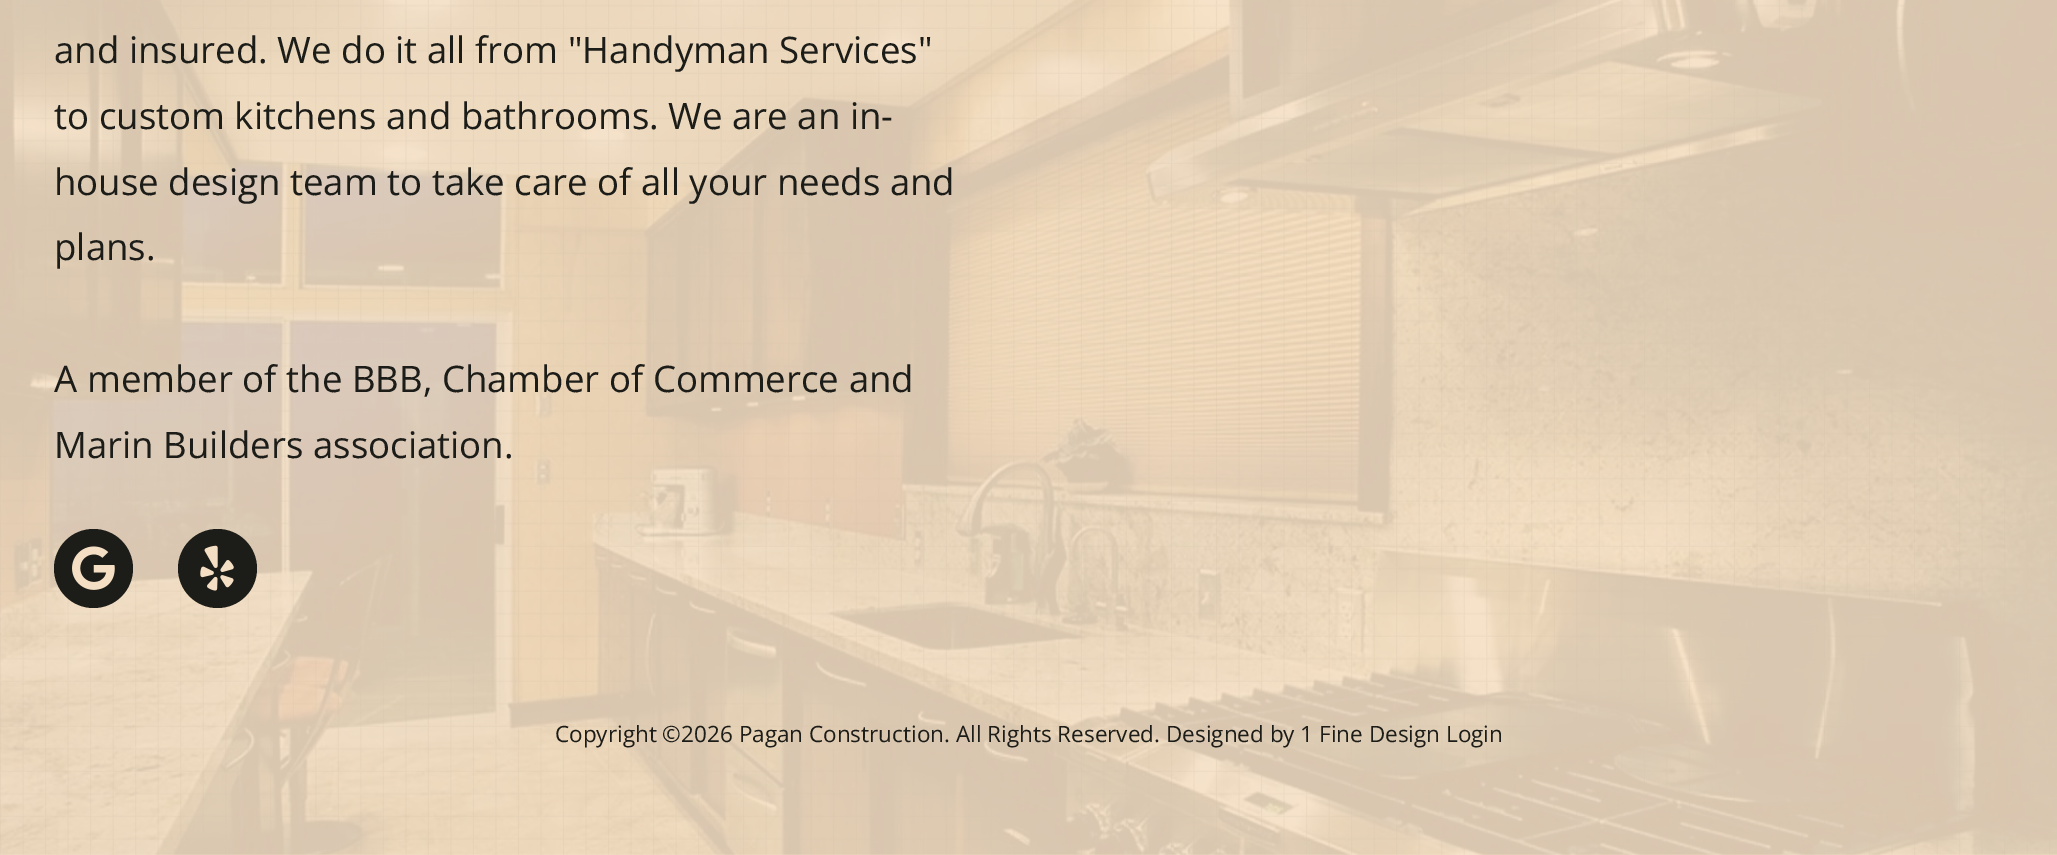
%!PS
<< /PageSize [2057 855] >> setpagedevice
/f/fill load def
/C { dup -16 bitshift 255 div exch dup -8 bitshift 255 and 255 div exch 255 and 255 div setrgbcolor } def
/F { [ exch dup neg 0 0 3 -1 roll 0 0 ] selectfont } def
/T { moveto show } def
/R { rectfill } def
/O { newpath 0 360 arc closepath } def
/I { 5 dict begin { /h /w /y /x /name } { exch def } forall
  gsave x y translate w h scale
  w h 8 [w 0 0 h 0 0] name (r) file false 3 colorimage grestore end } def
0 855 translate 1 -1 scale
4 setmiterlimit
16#FFFFFF C
0 0 2057 855 R
(1.rgb) 0 0 2057 855 I
/OpenSans-Regular 36.6 F
16#1C1C18 C
(and insured. We do it all from "Handyman Services") 54 63 T
(to custom kitchens and bathrooms. We are an in-) 54 129 T
(house design team to take care of all your needs and) 54 195 T
(plans.) 54 260 T
(A member of the BBB, Chamber of Commerce and) 54 392 T
(Marin Builders association.) 54 458 T
93.5 568.5 39.5 O f
(2.rgb) 72 546 43 44 I
217.5 568.5 39.5 O f
(3.rgb) 200 545 34 46 I
/OpenSans-Regular 22.5 F
(Copyright ©2026 Pagan Construction. All Rights Reserved.) 555 742 T
(Designed by 1 Fine Design Login) 1166 742 T
showpage
